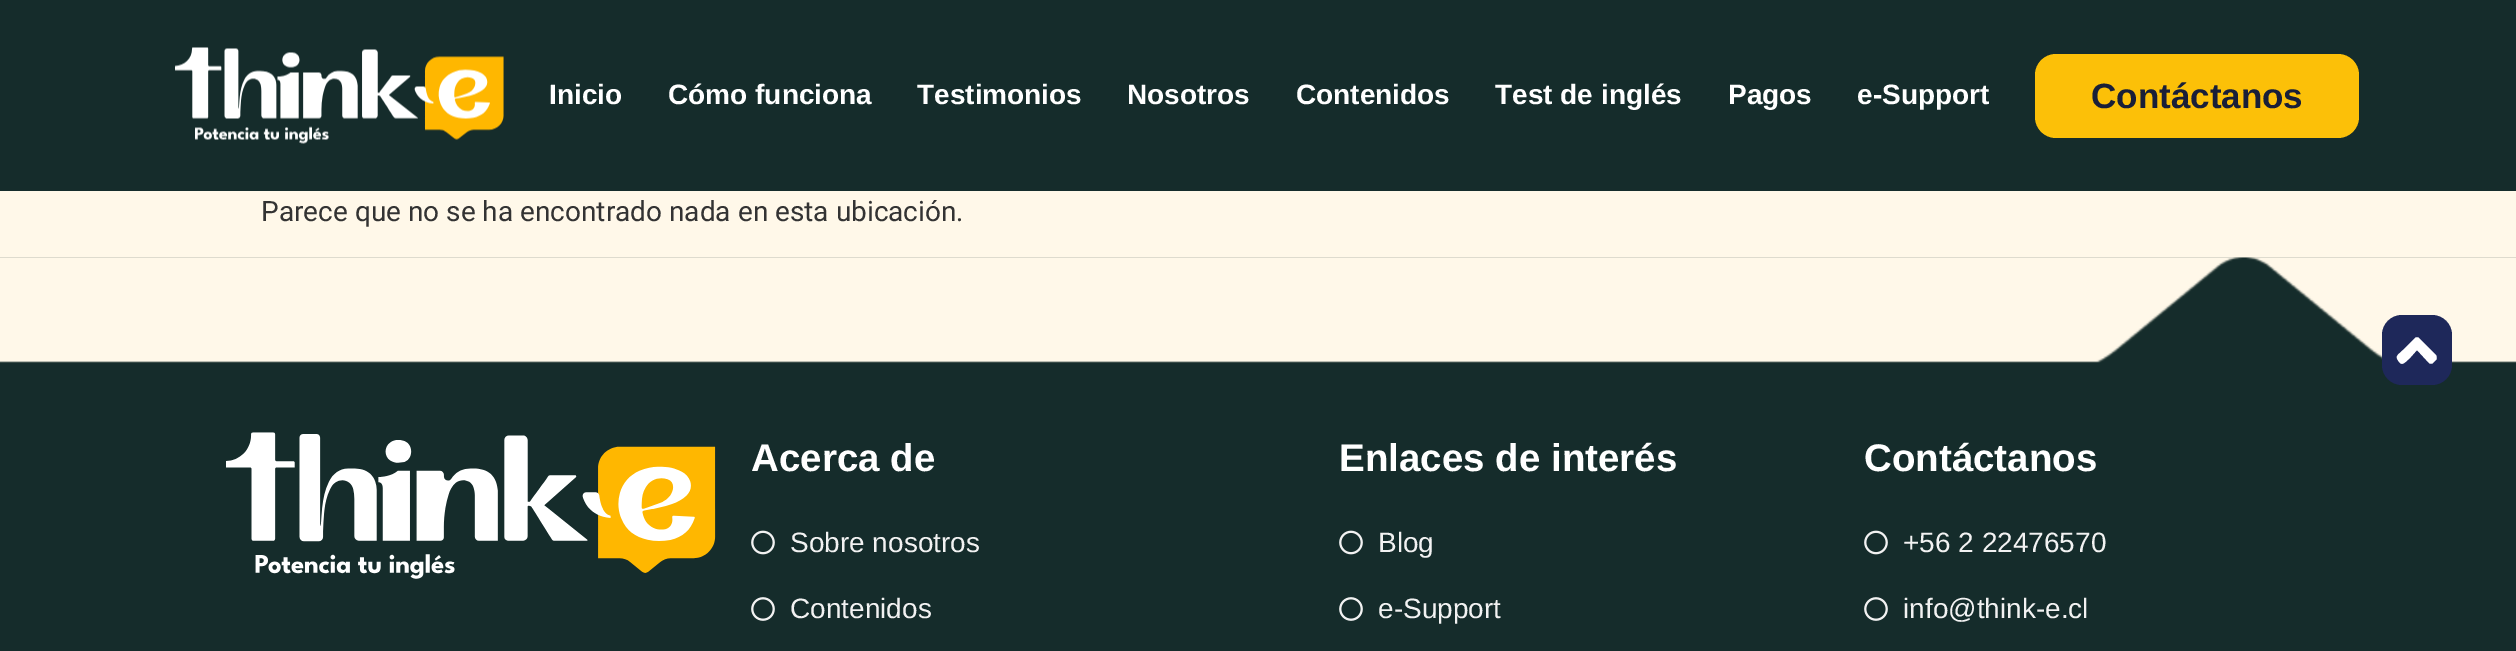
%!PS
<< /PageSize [2516 651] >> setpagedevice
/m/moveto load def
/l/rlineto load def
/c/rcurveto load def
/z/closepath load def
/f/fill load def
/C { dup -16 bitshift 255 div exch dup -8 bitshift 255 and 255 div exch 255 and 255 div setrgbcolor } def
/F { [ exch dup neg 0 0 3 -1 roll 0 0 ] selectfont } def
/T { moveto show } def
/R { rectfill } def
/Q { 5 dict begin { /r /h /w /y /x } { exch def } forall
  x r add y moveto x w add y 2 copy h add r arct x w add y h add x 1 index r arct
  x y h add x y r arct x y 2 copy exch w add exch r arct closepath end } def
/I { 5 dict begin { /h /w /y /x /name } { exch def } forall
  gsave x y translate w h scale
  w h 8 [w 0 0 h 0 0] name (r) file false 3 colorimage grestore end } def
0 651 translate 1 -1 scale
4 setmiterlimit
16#FFF8E9 C
0 0 2516 651 R
16#152C2B C
0 0 2516 191 R
(1.rgb) 175 47 329 97 I
/LiberationSans-Bold 28 F
16#FFFFFF C
(Inicio) 549 104 T
(Cómo funciona) 668 104 T
(Testimonios) 917 104 T
(Nosotros) 1127 104 T
(Contenidos) 1296 104 T
(Test de inglés) 1495 104 T
(Pagos) 1728 104 T
(e-Support) 1857 104 T
16#FCC008 C
2035 54 324 84 21 Q f
/LiberationSans-Bold 35 F
16#191F38 C
(Contáctanos) 2091 108 T
/Roboto-Regular 28 F
16#333333 C
(Parece que no se ha encontrado nada en esta ubicación.) 261 221 T
(2.rgb) 0 257 2516 394 I
16#1E285A C
2382 315 70 70 20 Q f
16#FFFFFF C
2415 338 m -12 12 l -6 6 -9 6 -3 13 c 3 3 7 -3 9 -4 c 8 -9 l 12 13 l 1 1 3 1 4 0 c 3 -3 l 1 -1 1 -3 0 -5 c -17 -17 l -1 -1 -3 -1 -4 0 c z f
(3.rgb) 226 432 490 147 I
/LiberationSans-Bold 38.5 F
(Acerca de) 751 471 T
(4.rgb) 751 530 24 25 I
/LiberationSans-Regular 28 F
16#F2F2F2 C
(Sobre nosotros) 790 552 T
(5.rgb) 751 597 24 24 I
(Contenidos) 790 618 T
/LiberationSans-Bold 38.5 F
16#FFFFFF C
(Enlaces de interés) 1339 471 T
(4.rgb) 1339 530 24 25 I
/LiberationSans-Regular 28 F
16#F2F2F2 C
(Blog) 1378 552 T
(5.rgb) 1339 597 24 24 I
(e-Support) 1378 618 T
/LiberationSans-Bold 38.5 F
16#FFFFFF C
(Contáctanos) 1864 471 T
(4.rgb) 1864 530 24 25 I
/LiberationSans-Regular 28 F
16#F2F2F2 C
(+56 2 22476570) 1903 552 T
(5.rgb) 1864 597 24 24 I
(info@think-e.cl) 1903 618 T
showpage
